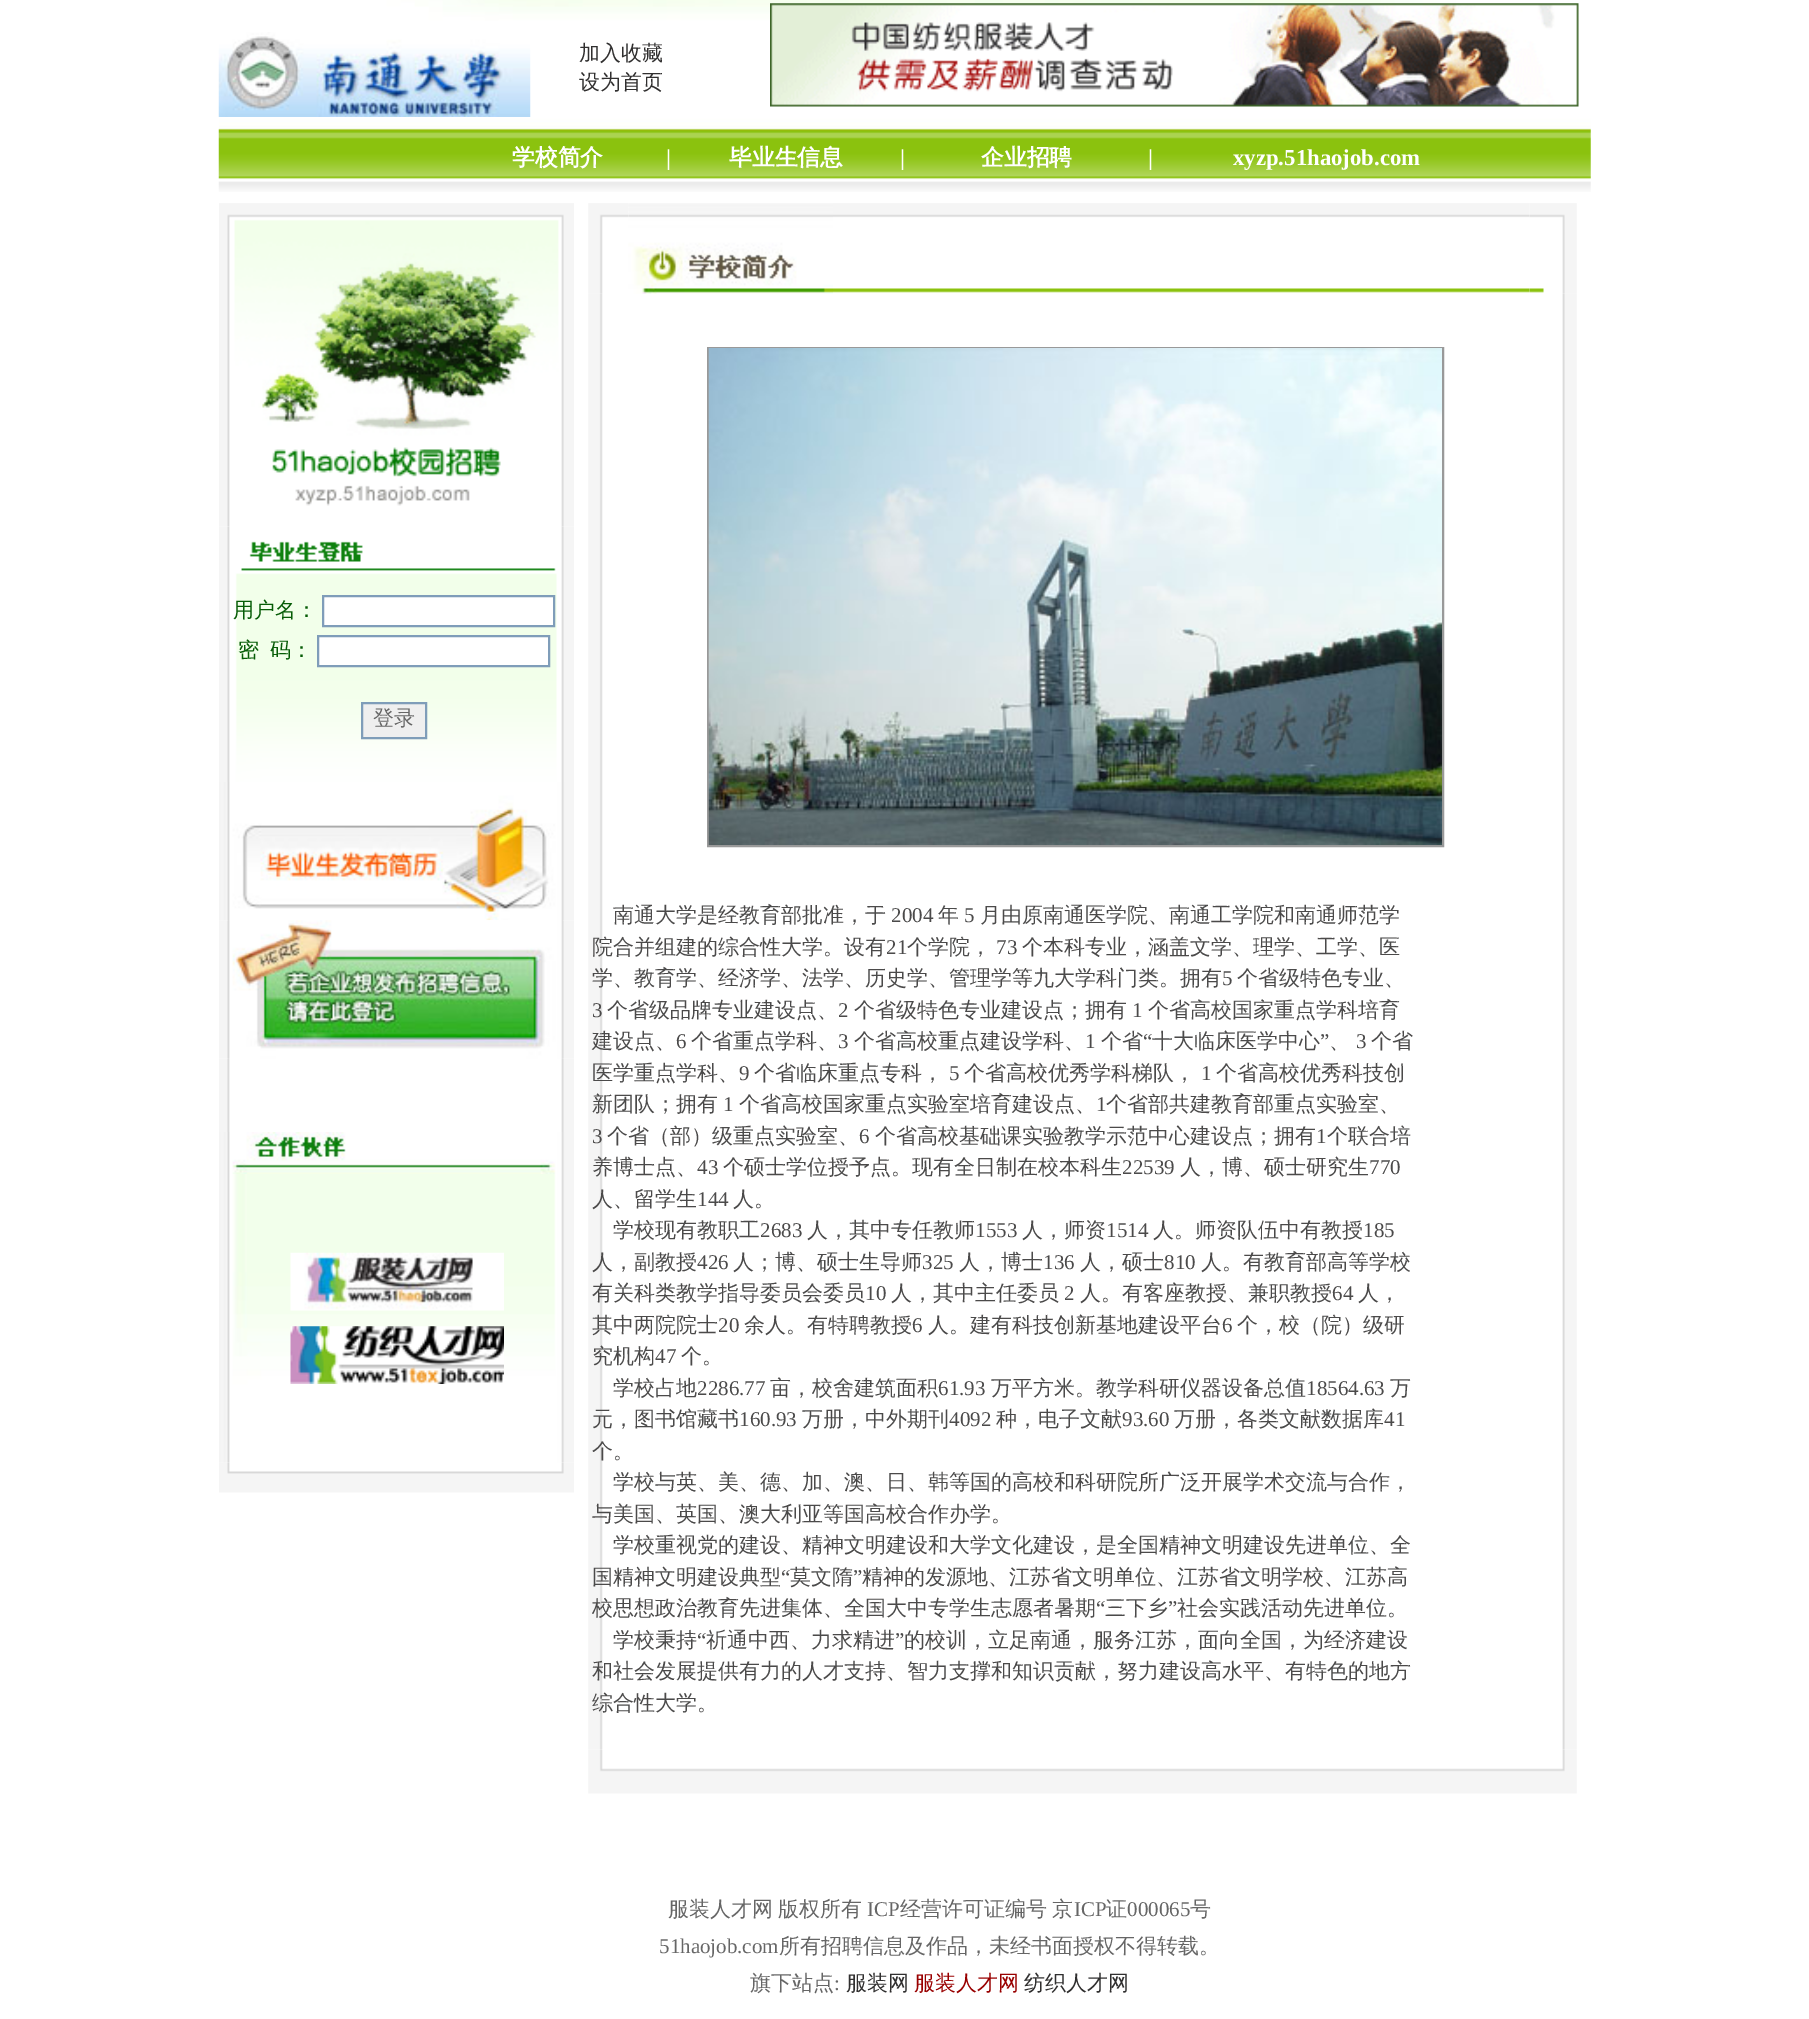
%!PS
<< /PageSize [1809 2019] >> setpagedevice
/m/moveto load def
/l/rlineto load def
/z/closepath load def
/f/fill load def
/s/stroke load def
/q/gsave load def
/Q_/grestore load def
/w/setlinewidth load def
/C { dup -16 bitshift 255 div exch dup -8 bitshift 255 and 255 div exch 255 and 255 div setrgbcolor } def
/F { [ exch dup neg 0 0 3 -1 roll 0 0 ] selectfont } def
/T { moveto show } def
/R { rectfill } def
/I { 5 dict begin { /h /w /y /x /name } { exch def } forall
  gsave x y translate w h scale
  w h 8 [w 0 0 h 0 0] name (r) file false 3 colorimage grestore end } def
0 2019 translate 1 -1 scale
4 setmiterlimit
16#FFFFFF C
0 0 1809 2019 R
(1.rgb) 218 0 1373 131 I
(2.rgb) 218 32 313 85 I
/WenQuanYiZenHei-Medium 21 F
16#302F2F C
(加入收藏) 579 60 T
(设为首页) 579 89 T
(3.rgb) 770 3 809 104 I
(4.rgb) 218 131 1373 61 I
/WenQuanYiZenHei-Bold 22.75 F
16#FFFFFF C
(学校简介) 512 165 T
/LiberationSerif-Bold 22.75 F
(|) 666 165 T
/WenQuanYiZenHei-Bold 22.75 F
(毕业生信息) 729 165 T
/LiberationSerif-Bold 22.75 F
(|) 900 165 T
/WenQuanYiZenHei-Bold 22.75 F
(企业招聘) 981 165 T
/LiberationSerif-Bold 22.75 F
(|) 1148 165 T
(xyzp.51haojob.com) 1233 165 T
(5.rgb) 219 203 355 324 I
(6.rgb) 219 526 355 53 I
(7.rgb) 219 579 355 203 I
/WenQuanYiZenHei-Medium 21 F
16#065C06 C
(用户名：) 233 617 T
16#FFFFFF C
323 596 m 231 0 l 0 30 l -231 0 l z q f Q_
16#7F9DB9 C
2 w
s
16#065C06 C
(密) 238 657 T
(码：) 270 657 T
16#FFFFFF C
318 636 m 231 0 l 0 30 l -231 0 l z q f Q_
16#7F9DB9 C
s
16#EFEFEF C
362 703 m 64 0 l 0 35 l -64 0 l z q f Q_
16#7F9DB9 C
s
16#666666 C
(登录) 373 725 T
(9.rgb) 219 920 355 139 I
(8.rgb) 219 782 355 139 I
(11.rgb) 219 1058 355 74 I
(10.rgb) 228 920 335 139 I
(12.rgb) 219 1132 355 42 I
(13.rgb) 219 1174 355 289 I
(14.rgb) 290 1252 214 59 I
(15.rgb) 290 1326 214 58 I
(16.rgb) 219 1463 355 30 I
(21.rgb) 588 293 989 1457 I
(17.rgb) 588 203 41 91 I
(18.rgb) 628 203 205 91 I
(19.rgb) 833 203 697 90 I
(20.rgb) 1529 203 48 91 I
16#999999 C
708 348 735 498 rectstroke
(22.rgb) 708 348 734 497 I
16#4B4A4A C
(南通大学是经教育部批准，于) 613 922 T
/LiberationSerif-Regular 21 F
(2004) 891 922 T
/WenQuanYiZenHei-Medium 21 F
(年) 938 922 T
/LiberationSerif-Regular 21 F
(5) 964 922 T
/WenQuanYiZenHei-Medium 21 F
(月由原南通医学院、南通工学院和南通师范学) 980 922 T
(院合并组建的综合性大学。设有) 592 954 T
/LiberationSerif-Regular 21 F
(21) 886 954 T
/WenQuanYiZenHei-Medium 21 F
(个学院，) 907 954 T
/LiberationSerif-Regular 21 F
(73) 996 954 T
/WenQuanYiZenHei-Medium 21 F
(个本科专业，涵盖文学、理学、工学、医) 1022 954 T
(学、教育学、经济学、法学、历史学、管理学等九大学科门类。拥有) 592 985 T
/LiberationSerif-Regular 21 F
(5) 1222 985 T
/WenQuanYiZenHei-Medium 21 F
(个省级特色专业、) 1237 985 T
/LiberationSerif-Regular 21 F
(3) 592 1017 T
/WenQuanYiZenHei-Medium 21 F
(个省级品牌专业建设点、) 607 1017 T
/LiberationSerif-Regular 21 F
(2) 838 1017 T
/WenQuanYiZenHei-Medium 21 F
(个省级特色专业建设点；拥有) 854 1017 T
/LiberationSerif-Regular 21 F
(1) 1132 1017 T
/WenQuanYiZenHei-Medium 21 F
(个省高校国家重点学科培育) 1148 1017 T
(建设点、) 592 1048 T
/LiberationSerif-Regular 21 F
(6) 676 1048 T
/WenQuanYiZenHei-Medium 21 F
(个省重点学科、) 691 1048 T
/LiberationSerif-Regular 21 F
(3) 838 1048 T
/WenQuanYiZenHei-Medium 21 F
(个省高校重点建设学科、) 854 1048 T
/LiberationSerif-Regular 21 F
(1) 1085 1048 T
/WenQuanYiZenHei-Medium 21 F
(个省) 1101 1048 T
/LiberationSerif-Regular 21 F
(“) 1143 1048 T
/WenQuanYiZenHei-Medium 21 F
(十大临床医学中心) 1152 1048 T
/LiberationSerif-Regular 21 F
(”) 1320 1048 T
/WenQuanYiZenHei-Medium 21 F
(、) 1329 1048 T
/LiberationSerif-Regular 21 F
(3) 1356 1048 T
/WenQuanYiZenHei-Medium 21 F
(个省) 1371 1048 T
(医学重点学科、) 592 1080 T
/LiberationSerif-Regular 21 F
(9) 739 1080 T
/WenQuanYiZenHei-Medium 21 F
(个省临床重点专科，) 754 1080 T
/LiberationSerif-Regular 21 F
(5) 949 1080 T
/WenQuanYiZenHei-Medium 21 F
(个省高校优秀学科梯队，) 964 1080 T
/LiberationSerif-Regular 21 F
(1) 1201 1080 T
/WenQuanYiZenHei-Medium 21 F
(个省高校优秀科技创) 1216 1080 T
(新团队；拥有) 592 1111 T
/LiberationSerif-Regular 21 F
(1) 723 1111 T
/WenQuanYiZenHei-Medium 21 F
(个省高校国家重点实验室培育建设点、) 739 1111 T
/LiberationSerif-Regular 21 F
(1) 1096 1111 T
/WenQuanYiZenHei-Medium 21 F
(个省部共建教育部重点实验室、) 1106 1111 T
/LiberationSerif-Regular 21 F
(3) 592 1143 T
/WenQuanYiZenHei-Medium 21 F
(个省（部）级重点实验室、) 607 1143 T
/LiberationSerif-Regular 21 F
(6) 859 1143 T
/WenQuanYiZenHei-Medium 21 F
(个省高校基础课实验教学示范中心建设点；拥有) 875 1143 T
/LiberationSerif-Regular 21 F
(1) 1316 1143 T
/WenQuanYiZenHei-Medium 21 F
(个联合培) 1327 1143 T
(养博士点、) 592 1174 T
/LiberationSerif-Regular 21 F
(43) 697 1174 T
/WenQuanYiZenHei-Medium 21 F
(个硕士学位授予点。现有全日制在校本科生) 723 1174 T
/LiberationSerif-Regular 21 F
(22539) 1122 1174 T
/WenQuanYiZenHei-Medium 21 F
(人，博、硕士研究生) 1180 1174 T
/LiberationSerif-Regular 21 F
(770) 1369 1174 T
/WenQuanYiZenHei-Medium 21 F
(人、留学生) 592 1206 T
/LiberationSerif-Regular 21 F
(144) 697 1206 T
/WenQuanYiZenHei-Medium 21 F
(人。) 733 1206 T
(学校现有教职工) 613 1237 T
/LiberationSerif-Regular 21 F
(2683) 760 1237 T
/WenQuanYiZenHei-Medium 21 F
(人，其中专任教师) 807 1237 T
/LiberationSerif-Regular 21 F
(1553) 975 1237 T
/WenQuanYiZenHei-Medium 21 F
(人，师资) 1022 1237 T
/LiberationSerif-Regular 21 F
(1514) 1106 1237 T
/WenQuanYiZenHei-Medium 21 F
(人。师资队伍中有教授) 1153 1237 T
/LiberationSerif-Regular 21 F
(185) 1363 1237 T
/WenQuanYiZenHei-Medium 21 F
(人，副教授) 592 1269 T
/LiberationSerif-Regular 21 F
(426) 697 1269 T
/WenQuanYiZenHei-Medium 21 F
(人；博、硕士生导师) 733 1269 T
/LiberationSerif-Regular 21 F
(325) 922 1269 T
/WenQuanYiZenHei-Medium 21 F
(人，博士) 959 1269 T
/LiberationSerif-Regular 21 F
(136) 1043 1269 T
/WenQuanYiZenHei-Medium 21 F
(人，硕士) 1080 1269 T
/LiberationSerif-Regular 21 F
(810) 1164 1269 T
/WenQuanYiZenHei-Medium 21 F
(人。有教育部高等学校) 1201 1269 T
(有关科类教学指导委员会委员) 592 1300 T
/LiberationSerif-Regular 21 F
(10) 865 1300 T
/WenQuanYiZenHei-Medium 21 F
(人，其中主任委员) 891 1300 T
/LiberationSerif-Regular 21 F
(2) 1064 1300 T
/WenQuanYiZenHei-Medium 21 F
(人。有客座教授、兼职教授) 1080 1300 T
/LiberationSerif-Regular 21 F
(64) 1332 1300 T
/WenQuanYiZenHei-Medium 21 F
(人，) 1358 1300 T
(其中两院院士) 592 1332 T
/LiberationSerif-Regular 21 F
(20) 718 1332 T
/WenQuanYiZenHei-Medium 21 F
(余人。有特聘教授) 744 1332 T
/LiberationSerif-Regular 21 F
(6) 912 1332 T
/WenQuanYiZenHei-Medium 21 F
(人。建有科技创新基地建设平台) 928 1332 T
/LiberationSerif-Regular 21 F
(6) 1222 1332 T
/WenQuanYiZenHei-Medium 21 F
(个，校（院）级研) 1237 1332 T
(究机构) 592 1363 T
/LiberationSerif-Regular 21 F
(47) 655 1363 T
/WenQuanYiZenHei-Medium 21 F
(个。) 681 1363 T
(学校占地) 613 1395 T
/LiberationSerif-Regular 21 F
(2286.77) 697 1395 T
/WenQuanYiZenHei-Medium 21 F
(亩，校舍建筑面积) 770 1395 T
/LiberationSerif-Regular 21 F
(61.93) 938 1395 T
/WenQuanYiZenHei-Medium 21 F
(万平方米。教学科研仪器设备总值) 991 1395 T
/LiberationSerif-Regular 21 F
(18564.63) 1306 1395 T
/WenQuanYiZenHei-Medium 21 F
(万) 1390 1395 T
(元，图书馆藏书) 592 1426 T
/LiberationSerif-Regular 21 F
(160.93) 739 1426 T
/WenQuanYiZenHei-Medium 21 F
(万册，中外期刊) 802 1426 T
/LiberationSerif-Regular 21 F
(4092) 949 1426 T
/WenQuanYiZenHei-Medium 21 F
(种，电子文献) 996 1426 T
/LiberationSerif-Regular 21 F
(93.60) 1122 1426 T
/WenQuanYiZenHei-Medium 21 F
(万册，各类文献数据库) 1174 1426 T
/LiberationSerif-Regular 21 F
(41) 1384 1426 T
/WenQuanYiZenHei-Medium 21 F
(个。) 592 1458 T
(学校与英、美、德、加、澳、日、韩等国的高校和科研院所广泛开展学术交流与合作，) 613 1489 T
(与美国、英国、澳大利亚等国高校合作办学。) 592 1521 T
(学校重视党的建设、精神文明建设和大学文化建设，是全国精神文明建设先进单位、全) 613 1552 T
(国精神文明建设典型) 592 1584 T
/LiberationSerif-Regular 21 F
(“) 781 1584 T
/WenQuanYiZenHei-Medium 21 F
(莫文隋) 790 1584 T
/LiberationSerif-Regular 21 F
(”) 853 1584 T
/WenQuanYiZenHei-Medium 21 F
(精神的发源地、江苏省文明单位、江苏省文明学校、江苏高) 862 1584 T
(校思想政治教育先进集体、全国大中专学生志愿者暑期) 592 1615 T
/LiberationSerif-Regular 21 F
(“) 1096 1615 T
/WenQuanYiZenHei-Medium 21 F
(三下乡) 1105 1615 T
/LiberationSerif-Regular 21 F
(”) 1168 1615 T
/WenQuanYiZenHei-Medium 21 F
(社会实践活动先进单位。) 1177 1615 T
(学校秉持) 613 1647 T
/LiberationSerif-Regular 21 F
(“) 697 1647 T
/WenQuanYiZenHei-Medium 21 F
(祈通中西、力求精进) 706 1647 T
/LiberationSerif-Regular 21 F
(”) 895 1647 T
/WenQuanYiZenHei-Medium 21 F
(的校训，立足南通，服务江苏，面向全国，为经济建设) 904 1647 T
(和社会发展提供有力的人才支持、智力支撑和知识贡献，努力建设高水平、有特色的地方) 592 1678 T
(综合性大学。) 592 1710 T
(23.rgb) 588 1750 989 44 I
16#666666 C
668 1916 m -1 0 32 (服装人才网 版权所有) widthshow
/LiberationSerif-Regular 21 F
(ICP) 867 1916 T
/WenQuanYiZenHei-Medium 21 F
900 1916 m -1 0 32 (经营许可证编号 京) widthshow
/LiberationSerif-Regular 21 F
(ICP) 1074 1916 T
/WenQuanYiZenHei-Medium 21 F
(证) 1106 1916 T
/LiberationSerif-Regular 21 F
(000065) 1127 1916 T
/WenQuanYiZenHei-Medium 21 F
(号) 1190 1916 T
/LiberationSerif-Regular 21 F
(51haojob.com) 659 1953 T
/WenQuanYiZenHei-Medium 21 F
(所有招聘信息及作品，未经书面授权不得转载。) 779 1953 T
(旗下站点) 750 1990 T
/LiberationSerif-Regular 21 F
(:) 834 1990 T
/WenQuanYiZenHei-Medium 21 F
16#302F2F C
(服装网) 846 1990 T
16#990000 C
(服装人才网) 914 1990 T
16#302F2F C
(纺织人才网) 1024 1990 T
showpage
